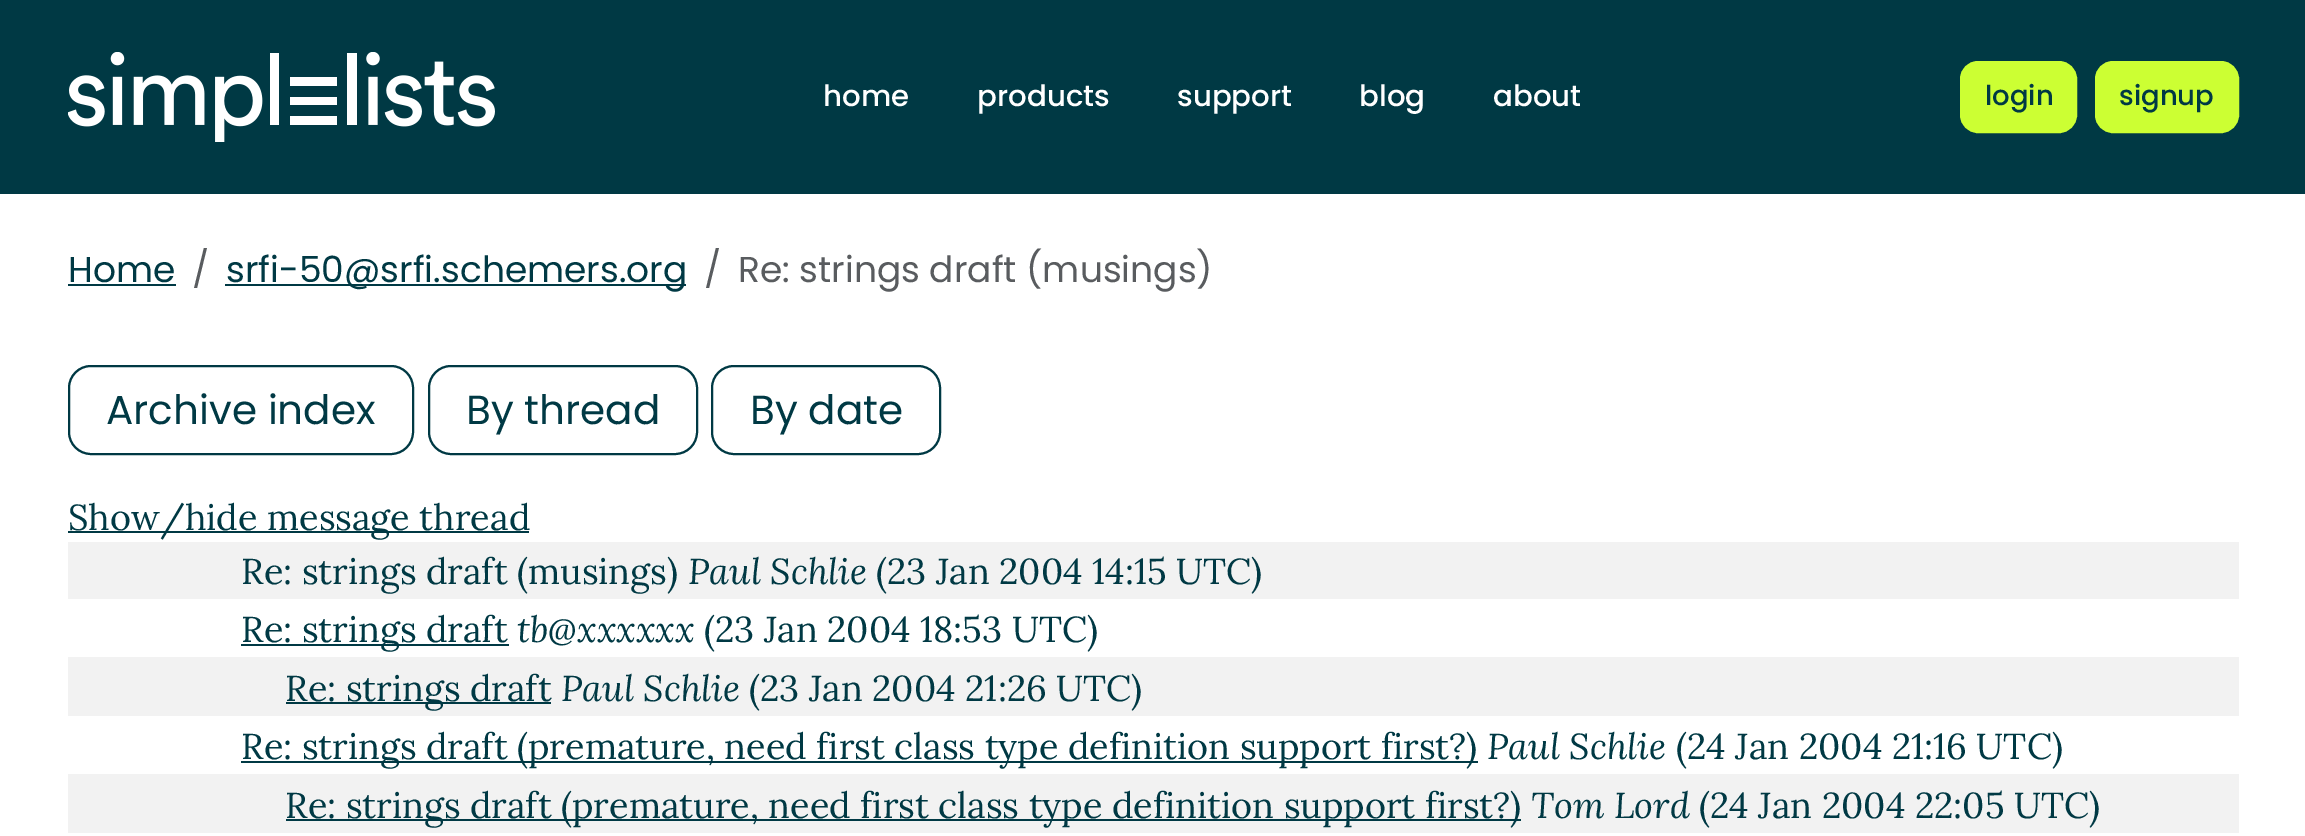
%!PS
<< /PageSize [2305 836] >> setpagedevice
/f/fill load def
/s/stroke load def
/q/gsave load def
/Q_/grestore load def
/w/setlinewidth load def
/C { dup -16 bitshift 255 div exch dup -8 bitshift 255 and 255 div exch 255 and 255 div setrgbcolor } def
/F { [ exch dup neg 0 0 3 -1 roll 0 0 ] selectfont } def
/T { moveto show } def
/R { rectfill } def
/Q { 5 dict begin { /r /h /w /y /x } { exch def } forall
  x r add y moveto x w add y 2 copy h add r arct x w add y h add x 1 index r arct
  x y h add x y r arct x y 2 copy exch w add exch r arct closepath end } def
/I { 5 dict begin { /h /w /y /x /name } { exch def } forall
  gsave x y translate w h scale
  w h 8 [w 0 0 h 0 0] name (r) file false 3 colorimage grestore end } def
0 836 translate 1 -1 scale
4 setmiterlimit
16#FFFFFF C
0 0 2305 836 R
16#003944 C
0 0 2305 194 R
(1.rgb) 68 52 427 90 I
/Poppins-Medium 29.25 F
16#FFFFFF C
(home) 823 106 T
(products) 977 106 T
(support) 1177 106 T
(blog) 1359 106 T
(about) 1493 106 T
16#CCFF33 C
1961 62 115 70 17 Q q f Q_
2 w
s
/Poppins-Medium 27.5 F
16#003944 C
(login) 1985 105 T
16#CCFF33 C
2096 62 142 70 17 Q q f Q_
s
16#003944 C
(signup) 2119 105 T
/Poppins-Regular 36 F
(Home) 68 282 T
68 284 108 2 R
16#595C5F C
(/) 192 282 T
16#003944 C
225 284 461 2 R
(srfi-50@srfi.schemers.org) 226 282 T
16#595C5F C
(/) 704 282 T
(Re: strings draft \(musings\)) 738 282 T
16#003944 C
69 366 344 88 22 Q s
/Poppins-Regular 40.5 F
(Archive index) 106 424 T
429 366 268 88 22 Q s
(By thread) 466 424 T
712 366 228 88 22 Q s
(By date) 750 424 T
68 531 461 2 R
/Lora-Regular 36 F
(Show/hide message thread) 68 530 T
16#F2F2F2 C
68 542 2171 57 R
16#003944 C
(Re: strings draft \(musings\)) 241 584 T
/Lora-Italic 36 F
(Paul Schlie) 688 584 T
/Lora-Regular 36 F
(\(23 Jan 2004 14:15 UTC\)) 876 584 T
241 644 268 2 R
(Re: strings draft) 241 642 T
/Lora-Italic 36 F
(tb@xxxxxx) 517 642 T
/Lora-Regular 36 F
(\(23 Jan 2004 18:53 UTC\)) 704 642 T
16#F2F2F2 C
68 657 2171 59 R
16#003944 C
286 702 265 2 R
(Re: strings draft) 285 701 T
/Lora-Italic 36 F
(Paul Schlie) 561 701 T
/Lora-Regular 36 F
(\(23 Jan 2004 21:26 UTC\)) 749 701 T
241 761 1237 2 R
(Re: strings draft \(premature, need first class type definition support first?\)) 241 759 T
/Lora-Italic 36 F
(Paul Schlie) 1487 759 T
/Lora-Regular 36 F
(\(24 Jan 2004 21:16 UTC\)) 1676 759 T
16#F2F2F2 C
68 774 2171 59 R
16#003944 C
286 819 1235 2 R
(Re: strings draft \(premature, need first class type definition support first?\)) 285 818 T
/Lora-Italic 36 F
(Tom Lord) 1531 818 T
/Lora-Regular 36 F
(\(24 Jan 2004 22:05 UTC\)) 1699 818 T
showpage
